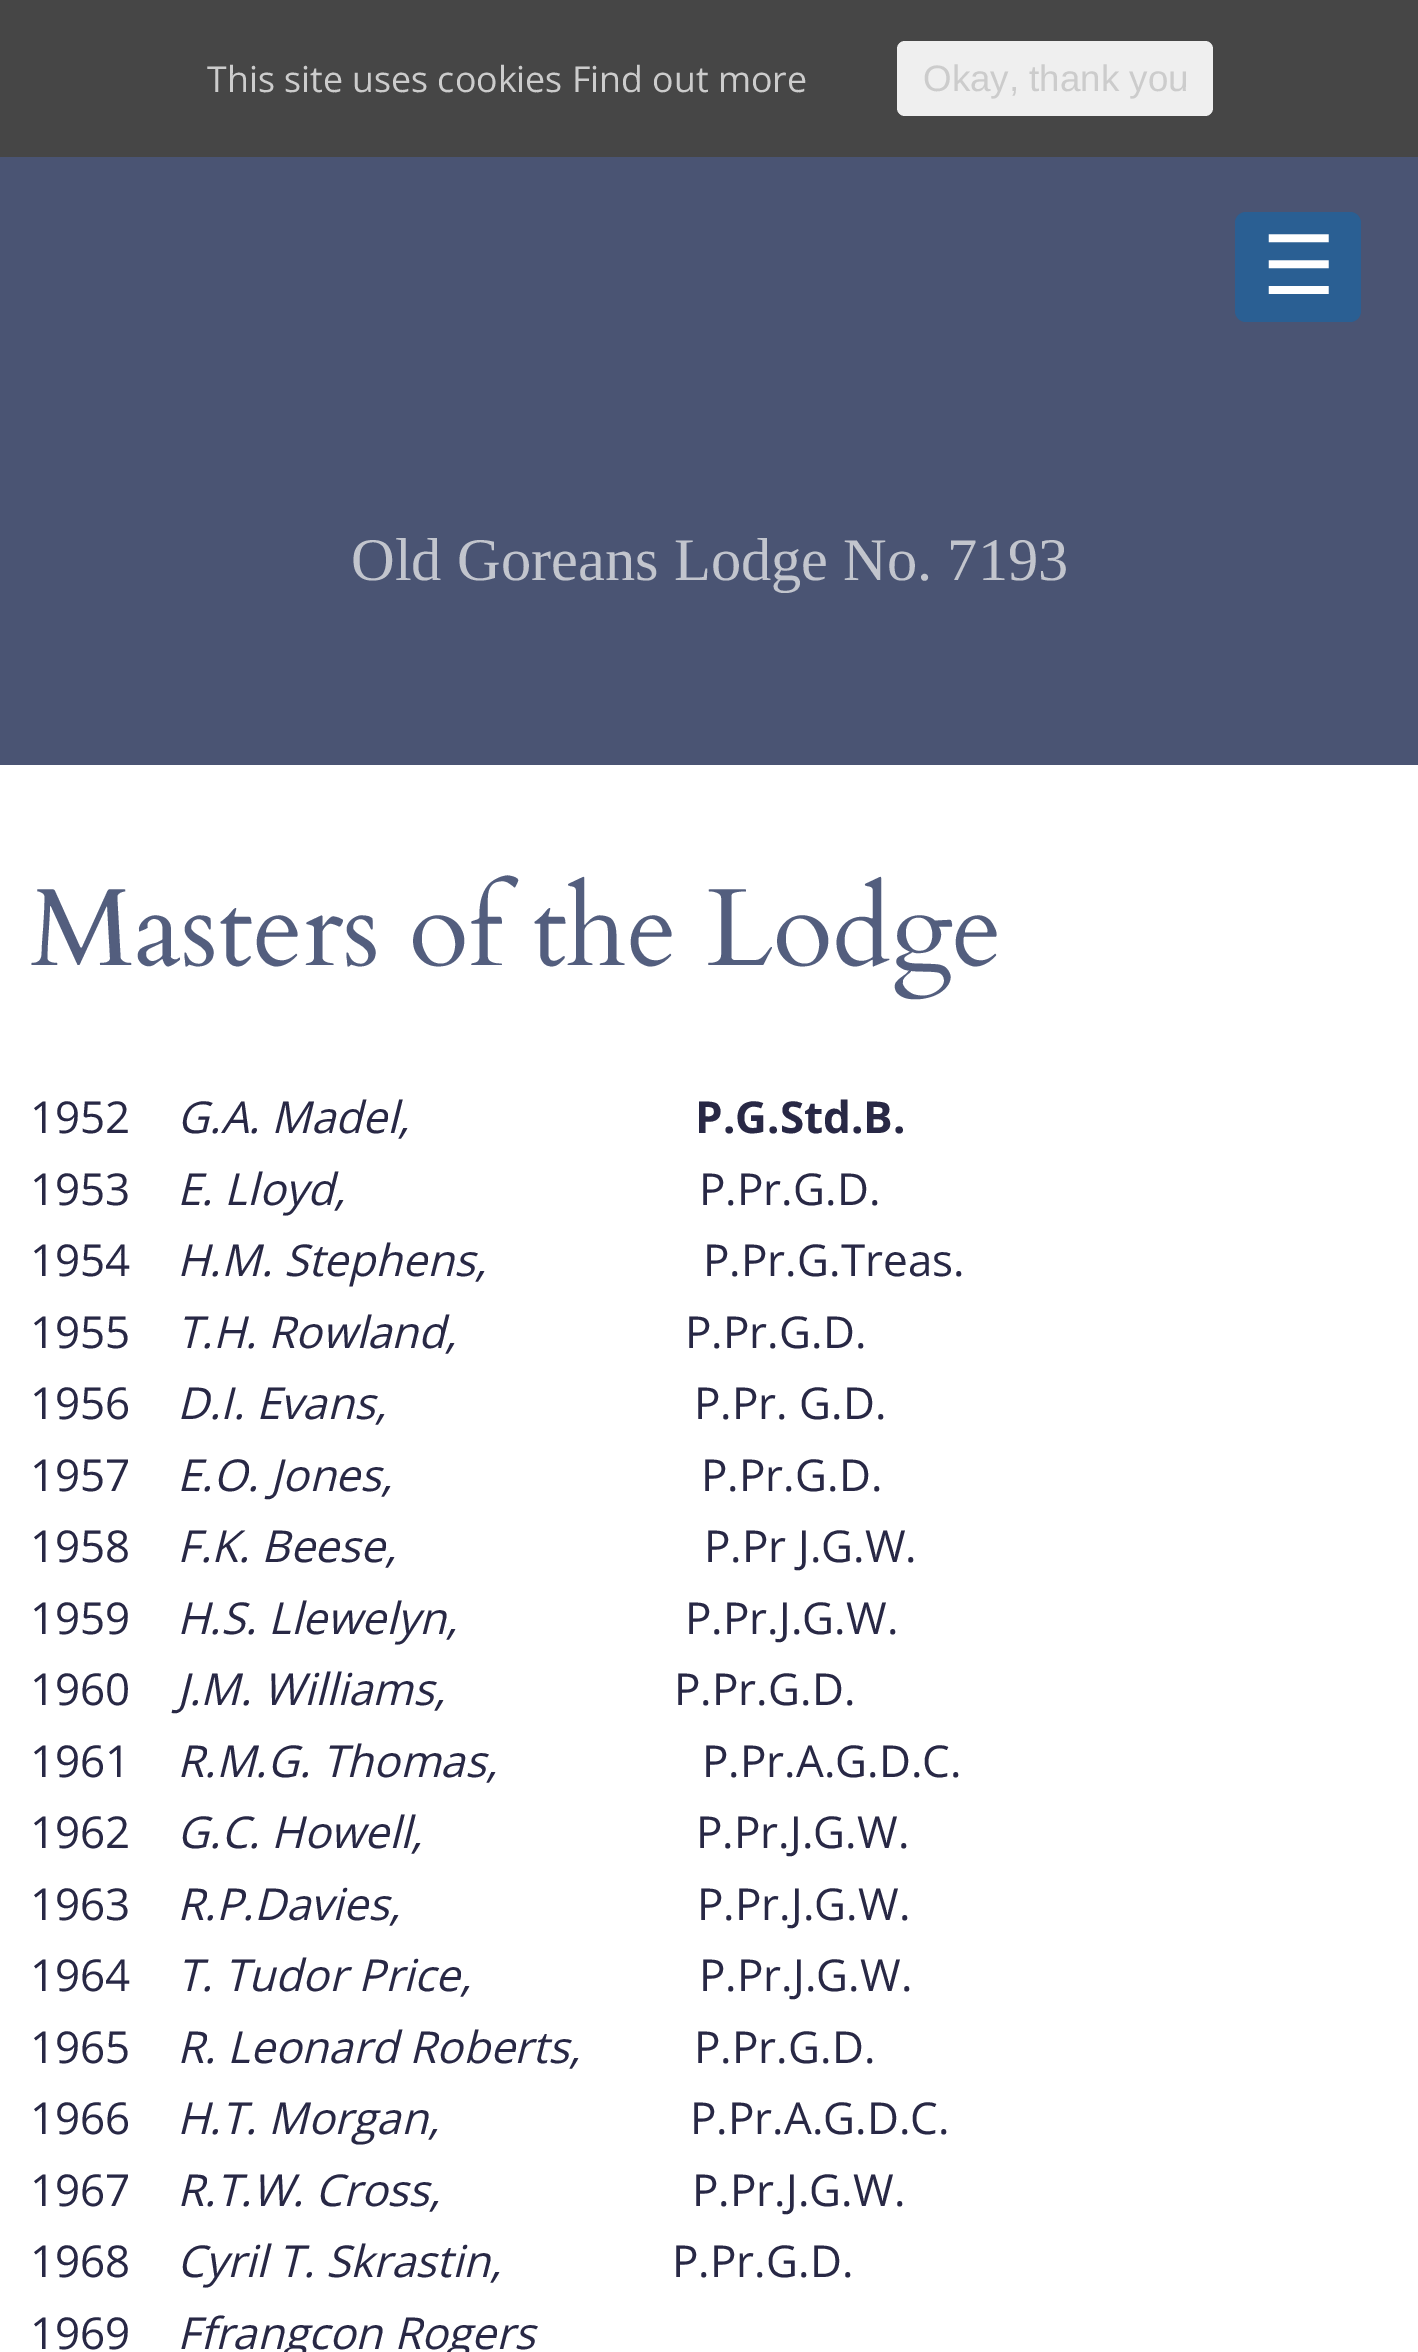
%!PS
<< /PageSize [1418 2352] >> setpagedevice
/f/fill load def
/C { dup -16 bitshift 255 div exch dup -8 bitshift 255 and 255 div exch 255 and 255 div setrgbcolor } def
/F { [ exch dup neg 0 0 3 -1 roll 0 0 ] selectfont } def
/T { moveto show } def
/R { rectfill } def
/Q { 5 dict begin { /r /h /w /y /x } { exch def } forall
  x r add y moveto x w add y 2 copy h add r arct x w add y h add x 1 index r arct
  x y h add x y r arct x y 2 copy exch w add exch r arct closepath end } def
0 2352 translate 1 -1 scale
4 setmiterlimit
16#FFFFFF C
0 0 1418 2352 R
16#464646 C
0 0 1418 157 R
/OpenSans-Regular 35.75 F
16#CCCCCC C
(This site uses cookies Find out more) 207 92 T
16#EFEFEF C
897 41 316 75 8 Q f
/LiberationSans-Regular 36.75 F
16#CCCCCC C
(Okay, thank you) 923 91 T
16#4A5473 C
0 157 1418 608 R
16#2A5F93 C
1235 212 126 110 11 Q f
/DejaVuSans-Regular 82 F
16#FFFFFF C
(☰) 1262 294 T
/LiberationSerif-Regular 60.5 F
16#C2C5CD C
(Old Goreans Lodge No. 7193) 351 580 T
/Cardo-Regular 110 F
16#535E7E C
(Masters of the Lodge) 30 965 T
/OpenSans-Regular 44 F
16#282845 C
(1952) 30 1133 T
/OpenSans-Italic 44 F
(G.A. Madel,) 177 1133 T
/OpenSans-Bold 44 F
(P.G.Std.B.) 695 1133 T
/OpenSans-Regular 44 F
(1953) 30 1205 T
/OpenSans-Italic 44 F
(E. Lloyd,) 177 1205 T
/OpenSans-Regular 44 F
(P.Pr.G.D.) 699 1205 T
(1954) 30 1276 T
/OpenSans-Italic 44 F
(H.M. Stephens,) 177 1276 T
/OpenSans-Regular 44 F
(P.Pr.G.Treas.) 703 1276 T
(1955) 30 1348 T
/OpenSans-Italic 44 F
(T.H. Rowland,) 177 1348 T
/OpenSans-Regular 44 F
(P.Pr.G.D.) 685 1348 T
(1956) 30 1419 T
/OpenSans-Italic 44 F
(D.I. Evans,) 177 1419 T
/OpenSans-Regular 44 F
(P.Pr. G.D.) 694 1419 T
(1957) 30 1491 T
/OpenSans-Italic 44 F
(E.O. Jones,) 177 1491 T
/OpenSans-Regular 44 F
(P.Pr.G.D.) 701 1491 T
(1958) 30 1562 T
/OpenSans-Italic 44 F
(F.K. Beese,) 177 1562 T
/OpenSans-Regular 44 F
(P.Pr J.G.W.) 704 1562 T
(1959) 30 1634 T
/OpenSans-Italic 44 F
(H.S. Llewelyn,) 177 1634 T
/OpenSans-Regular 44 F
(P.Pr.J.G.W.) 685 1634 T
(1960) 30 1705 T
/OpenSans-Italic 44 F
(J.M. Williams,) 177 1705 T
/OpenSans-Regular 44 F
(P.Pr.G.D.) 674 1705 T
(1961) 30 1777 T
/OpenSans-Italic 44 F
(R.M.G. Thomas,) 177 1777 T
/OpenSans-Regular 44 F
(P.Pr.A.G.D.C.) 702 1777 T
(1962) 30 1848 T
/OpenSans-Italic 44 F
(G.C. Howell,) 177 1848 T
/OpenSans-Regular 44 F
(P.Pr.J.G.W.) 696 1848 T
(1963) 30 1920 T
/OpenSans-Italic 44 F
(R.P.Davies,) 177 1920 T
/OpenSans-Regular 44 F
(P.Pr.J.G.W.) 697 1920 T
(1964) 30 1991 T
/OpenSans-Italic 44 F
(T. Tudor Price,) 177 1991 T
/OpenSans-Regular 44 F
(P.Pr.J.G.W.) 699 1991 T
(1965) 30 2063 T
/OpenSans-Italic 44 F
(R. Leonard Roberts,) 177 2063 T
/OpenSans-Regular 44 F
(P.Pr.G.D.) 694 2063 T
(1966) 30 2134 T
/OpenSans-Italic 44 F
(H.T. Morgan,) 177 2134 T
/OpenSans-Regular 44 F
(P.Pr.A.G.D.C.) 690 2134 T
(1967) 30 2206 T
/OpenSans-Italic 44 F
(R.T.W. Cross,) 177 2206 T
/OpenSans-Regular 44 F
(P.Pr.J.G.W.) 692 2206 T
(1968) 30 2277 T
/OpenSans-Italic 44 F
(Cyril T. Skrastin,) 177 2277 T
/OpenSans-Regular 44 F
(P.Pr.G.D.) 672 2277 T
(1969) 30 2349 T
/OpenSans-Italic 44 F
(Ffrangcon Rogers) 177 2349 T
showpage
